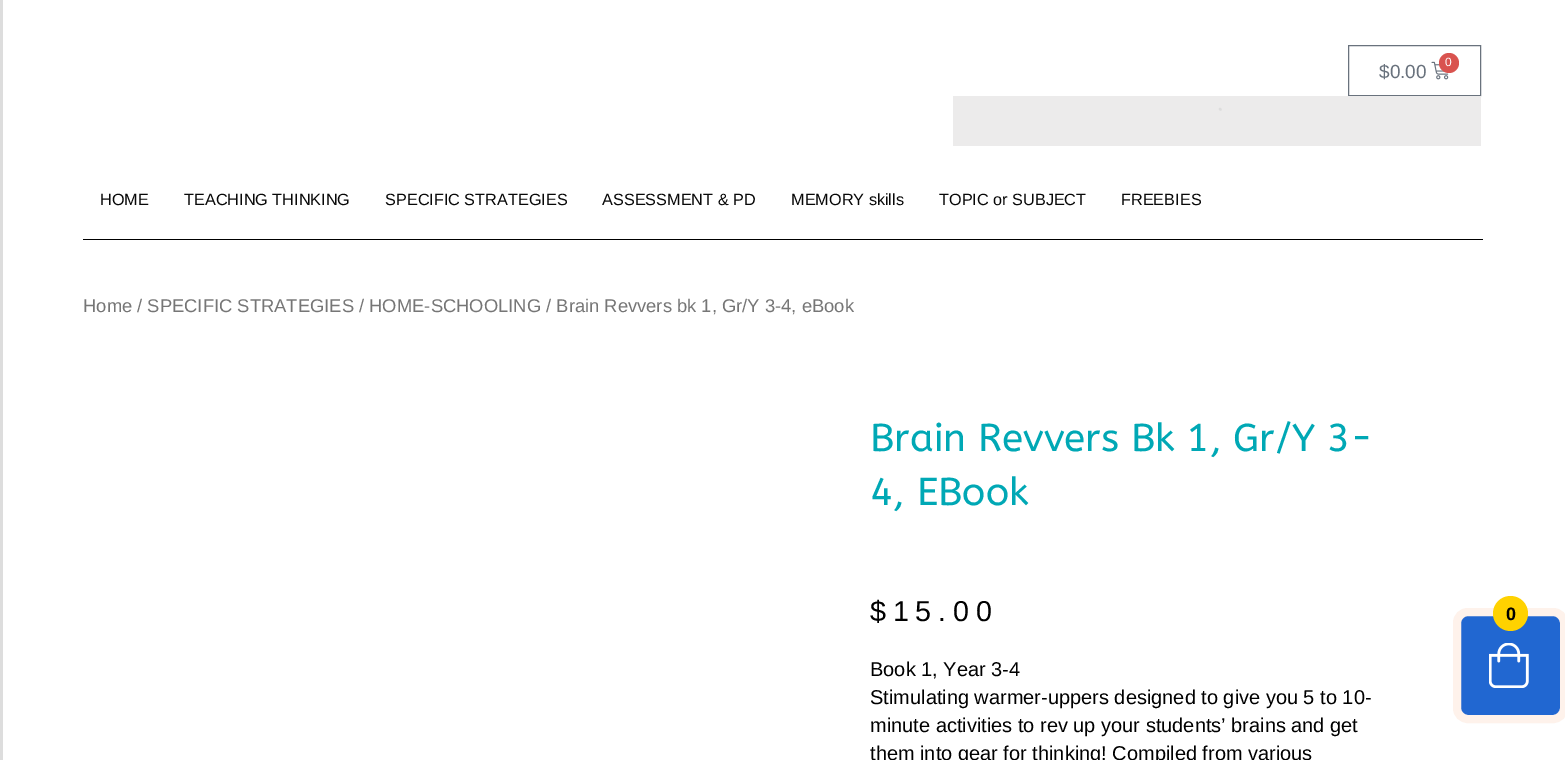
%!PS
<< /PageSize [1565 760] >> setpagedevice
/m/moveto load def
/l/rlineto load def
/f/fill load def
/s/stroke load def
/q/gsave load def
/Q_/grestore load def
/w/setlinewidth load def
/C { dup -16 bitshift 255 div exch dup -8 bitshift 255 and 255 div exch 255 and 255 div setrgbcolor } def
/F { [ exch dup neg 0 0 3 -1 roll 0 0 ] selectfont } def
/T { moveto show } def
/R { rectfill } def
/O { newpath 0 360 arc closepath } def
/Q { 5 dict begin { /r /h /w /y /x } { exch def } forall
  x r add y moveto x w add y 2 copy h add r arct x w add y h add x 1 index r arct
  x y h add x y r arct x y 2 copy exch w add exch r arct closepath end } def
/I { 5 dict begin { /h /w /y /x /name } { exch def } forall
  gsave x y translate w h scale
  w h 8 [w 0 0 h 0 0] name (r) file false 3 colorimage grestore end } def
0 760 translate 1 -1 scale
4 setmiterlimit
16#FFFFFF C
0 0 1565 760 R
16#69727D C
1348.5 45.5 132 50 rectstroke
(1.rgb) 1431 61 18 19 I
16#D9534F C
1449 63 10 O f
/LiberationSans-Regular 12 F
16#FFFFFF C
(0) 1445 66 T
/LiberationSans-Regular 19 F
16#69727D C
($0.00) 1379 78 T
16#ECEBEB C
953 96 528 50 R
16#DDDDDD C
2.4 w
1 setlinecap
1220 109 m .5 .5 l s
/LiberationSans-Regular 16.25 F
16#080808 C
(HOME) 100 205 T
(TEACHING THINKING) 184 205 T
(SPECIFIC STRATEGIES) 385 205 T
(ASSESSMENT & PD) 602 205 T
(MEMORY skills) 791 205 T
(TOPIC or SUBJECT) 939 205 T
(FREEBIES) 1121 205 T
16#000000 C
83 239 1400 1 R
/LiberationSans-Regular 18.4 F
16#767676 C
(Home / SPECIFIC STRATEGIES / HOME-SCHOOLING / Brain Revvers bk 1, Gr/Y 3-4, eBook) 83 312 T
/ABeeZee-Regular 38.75 F
16#00A8B5 C
(Brain Revvers Bk 1, Gr/Y 3-) 870 451 T
(4, EBook) 870 505 T
/LiberationSans-Regular 28.75 F
16#000000 C
870 621 m 6.75 0 ($15.00) ashow
/LiberationSans-Regular 20 F
(Book 1, Year 3-4) 870 676 T
(Stimulating warmer-uppers designed to give you 5 to 10-) 870 704 T
(minute activities to rev up your students’ brains and get) 870 732 T
(them into gear for thinking! Compiled from various) 870 760 T
16#DDDDDD C
0 0 3 760 R
16#2167D1 C
1457 612 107 107 11 Q q f Q_
16#FEF2EB C
8 w
0 setlinecap
s
16#FFD200 C
1510.5 613.5 17.5 O f
/LiberationSans-Bold 18 F
16#000000 C
1506 620 m -1 0 (0) ashow
(2.rgb) 1489 643 40 45 I
showpage
